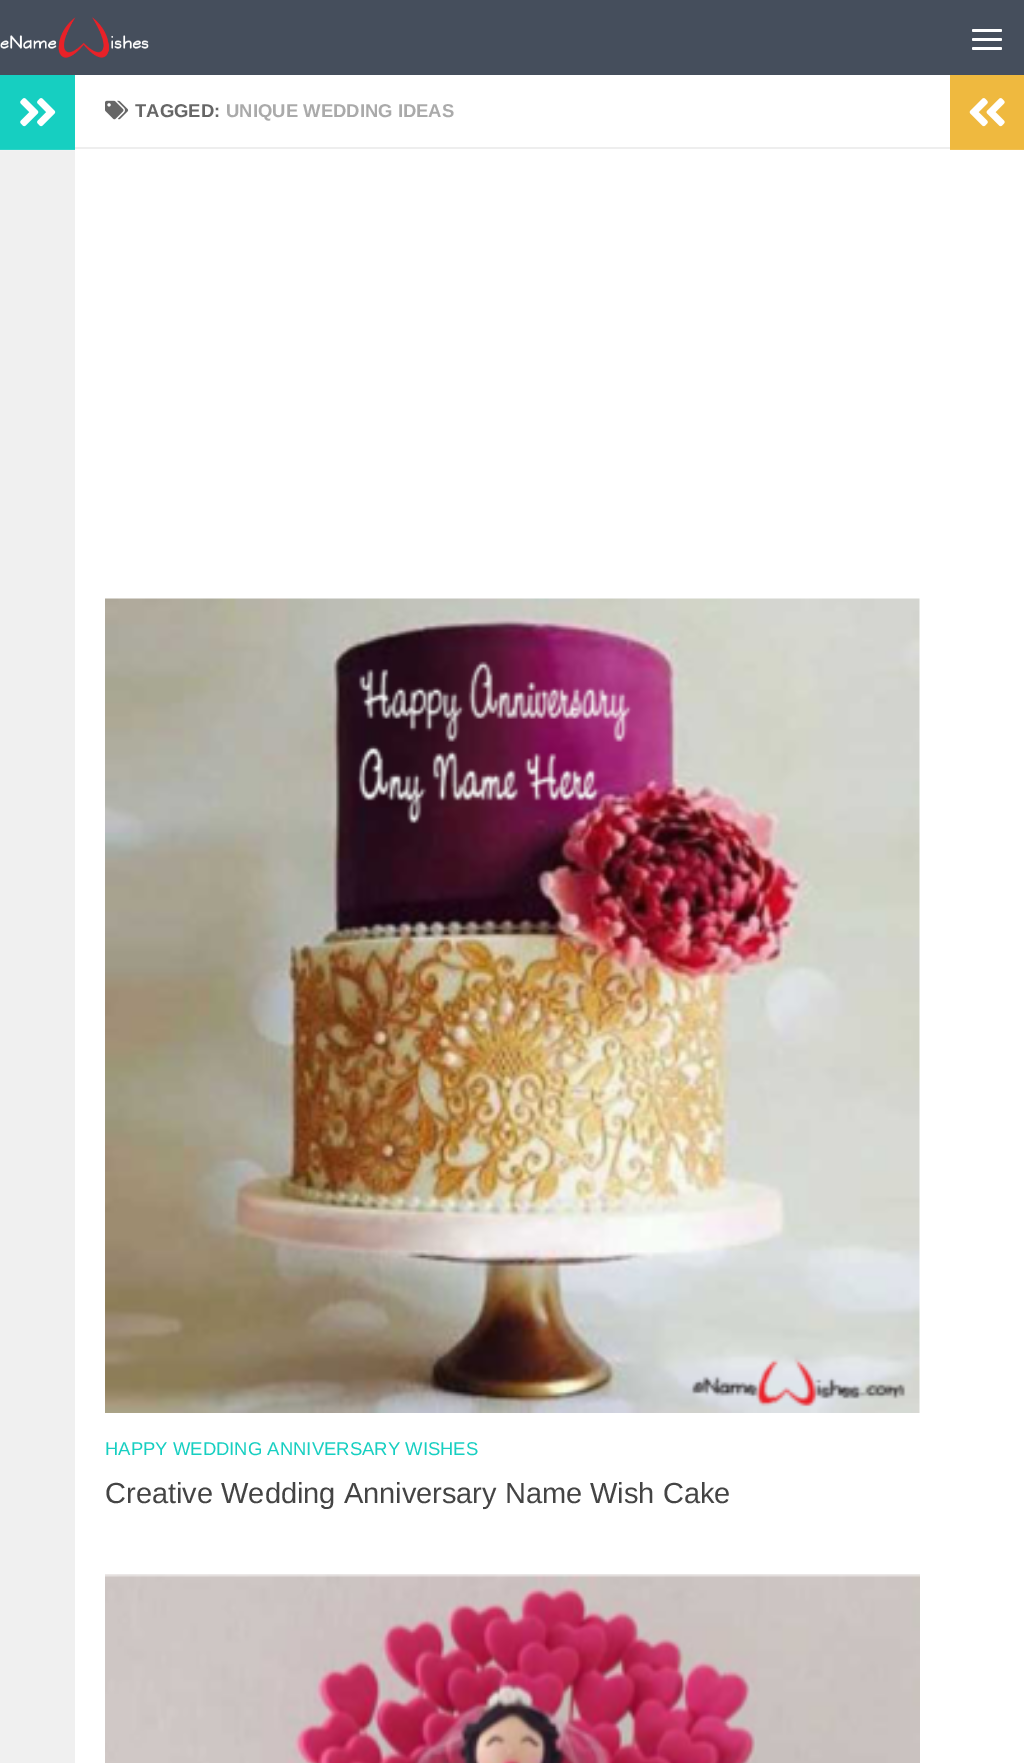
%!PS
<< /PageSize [1024 1763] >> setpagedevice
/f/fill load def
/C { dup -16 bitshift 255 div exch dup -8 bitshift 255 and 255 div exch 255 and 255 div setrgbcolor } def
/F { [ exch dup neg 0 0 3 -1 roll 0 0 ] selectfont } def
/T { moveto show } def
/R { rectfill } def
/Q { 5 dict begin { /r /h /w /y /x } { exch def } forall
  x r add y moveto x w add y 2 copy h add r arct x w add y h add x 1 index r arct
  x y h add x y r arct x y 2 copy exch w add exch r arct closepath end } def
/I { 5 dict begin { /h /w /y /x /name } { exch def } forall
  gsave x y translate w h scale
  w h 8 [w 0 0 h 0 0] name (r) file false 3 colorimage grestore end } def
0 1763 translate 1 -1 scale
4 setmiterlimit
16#FFFFFF C
0 0 1024 1763 R
16#454E5C C
0 0 1024 75 R
(1.rgb) 0 17 149 41 I
16#FFFFFF C
972 29 30 3 1.5 Q f
972 38 30 3 1.5 Q f
972 47 30 3 1.5 Q f
16#F0F0F0 C
0 151 75 1612 R
16#F2F2F2 C
0 150 75 1 R
16#16CFC1 C
0 75 75 74 R
16#2DD4C7 C
0 149 75 1 R
(2.rgb) 20 98 36 29 I
16#EEEEEE C
75 147 875 2 R
(3.rgb) 105 100 24 20 I
/LiberationSans-Bold 18.5 F
16#666666 C
(TAGGED:) 135 117 T
16#AAAAAA C
(UNIQUE WEDDING IDEAS) 226 117 T
(4.rgb) 105 598 815 815 I
/LiberationSans-Regular 18.5 F
16#16CFC1 C
(HAPPY WEDDING ANNIVERSARY WISHES) 105 1455 T
/LiberationSans-Regular 29 F
16#444444 C
(Creative Wedding Anniversary Name Wish Cake) 105 1503 T
(5.rgb) 105 1574 815 189 I
16#EFB93F C
950 75 74 74 R
16#F1C052 C
950 149 74 1 R
(6.rgb) 969 98 36 29 I
showpage
